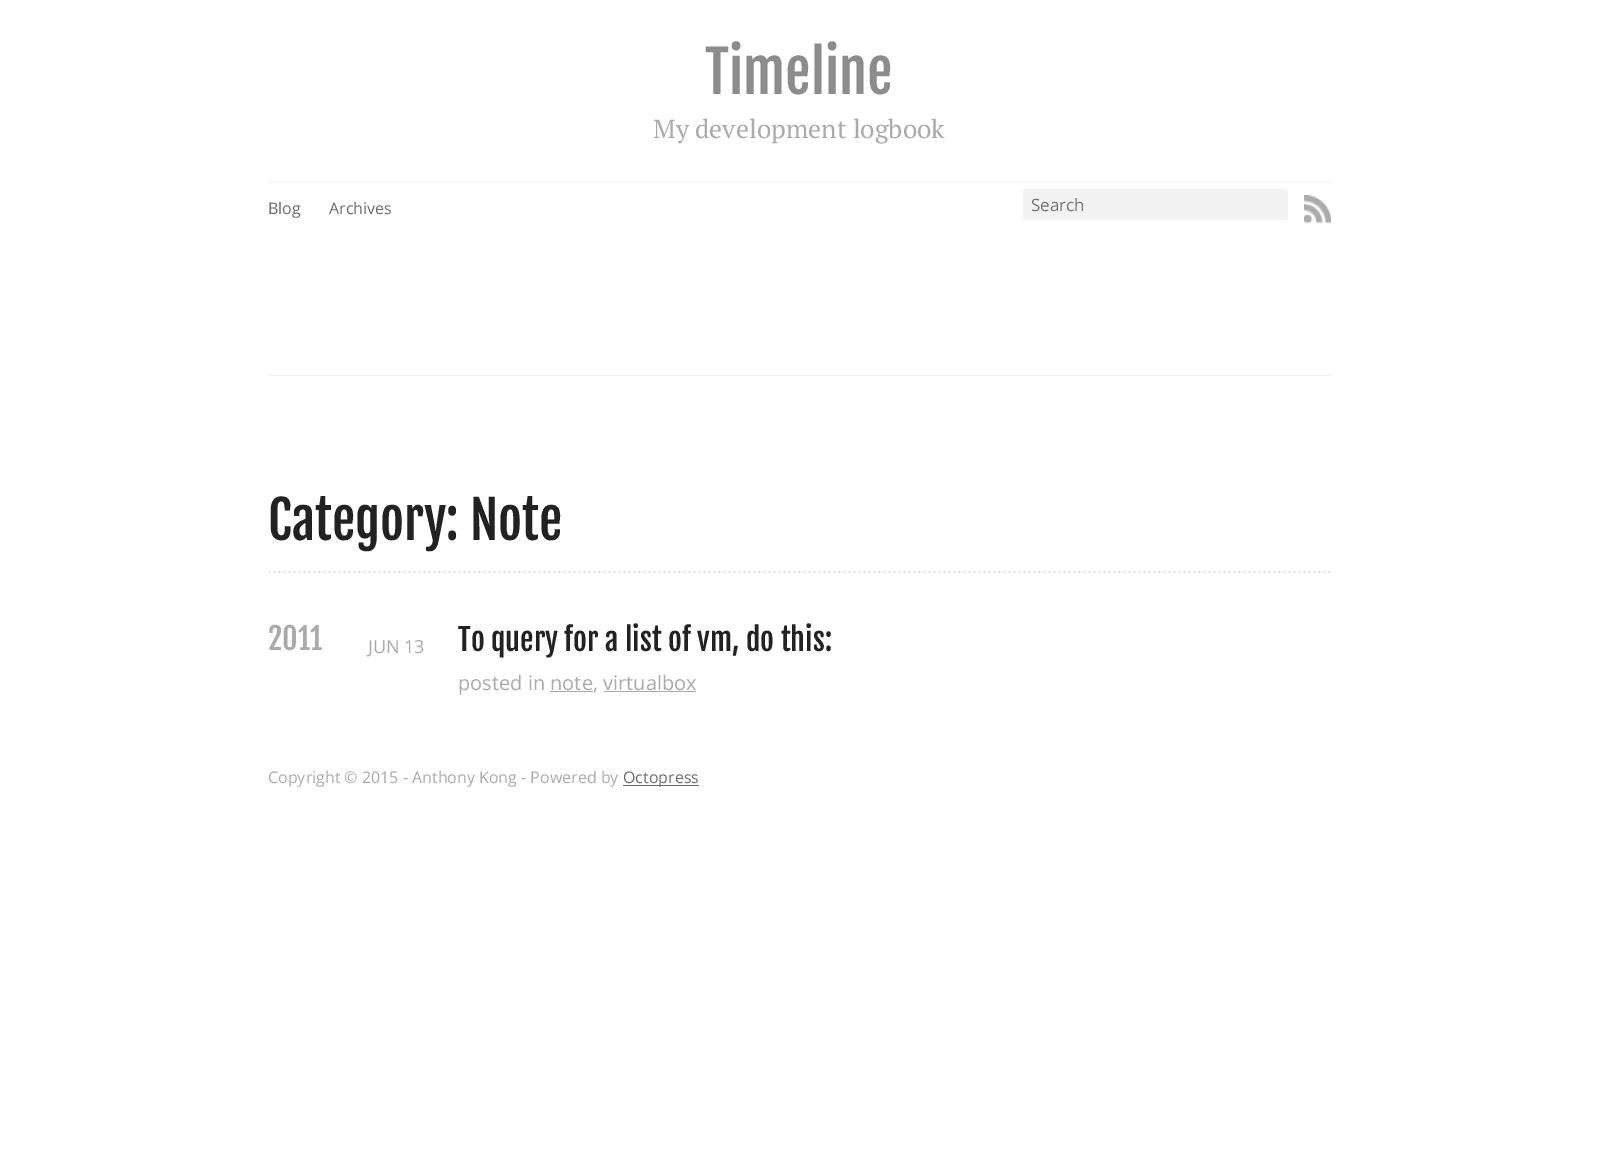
%!PS
<< /PageSize [1598 1160] >> setpagedevice
/f/fill load def
/C { dup -16 bitshift 255 div exch dup -8 bitshift 255 and 255 div exch 255 and 255 div setrgbcolor } def
/F { [ exch dup neg 0 0 3 -1 roll 0 0 ] selectfont } def
/T { moveto show } def
/R { rectfill } def
/Q { 5 dict begin { /r /h /w /y /x } { exch def } forall
  x r add y moveto x w add y 2 copy h add r arct x w add y h add x 1 index r arct
  x y h add x y r arct x y 2 copy exch w add exch r arct closepath end } def
/I { 5 dict begin { /h /w /y /x /name } { exch def } forall
  gsave x y translate w h scale
  w h 8 [w 0 0 h 0 0] name (r) file false 3 colorimage grestore end } def
0 1160 translate 1 -1 scale
4 setmiterlimit
16#FFFFFF C
0 0 1598 1160 R
/FjallaOne-Regular 57 F
16#8C8C8C C
(Timeline) 705 94 T
/PTSerif-Regular 26 F
16#AAAAAA C
(My development logbook) 653 138 T
16#F2F2F2 C
269 181 1062 1 R
269 375 1062 1 R
/OpenSans-Regular 16 F
16#6B6B6B C
(Blog) 268 214 T
(Archives) 329 214 T
16#F2F2F2 C
1023 189 265 31 3 Q f
/OpenSans-Regular 17 F
16#757575 C
(Search) 1031 211 T
(1.rgb) 1304 196 27 28 I
(2.rgb) 1304 195 27 28 I
(3.rgb) 269 571 1062 2 I
/FjallaOne-Regular 52 F
16#222222 C
(Category: Note) 268 540 T
/FjallaOne-Regular 30 F
16#AAAAAA C
(2011) 268 650 T
/OpenSans-Regular 18 F
(JUN 13) 368 653 T
/FjallaOne-Regular 30 F
16#222222 C
(To query for a list of vm, do this:) 458 651 T
/OpenSans-Regular 20 F
16#AAAAAA C
(posted in note, virtualbox) 458 690 T
550 691 43 1 R
604 691 92 1 R
/OpenSans-Regular 16 F
(Copyright © 2015 - Anthony Kong - Powered by) 268 783 T
16#6B6B6B C
623 785 76 1 R
(Octopress) 623 783 T
showpage
